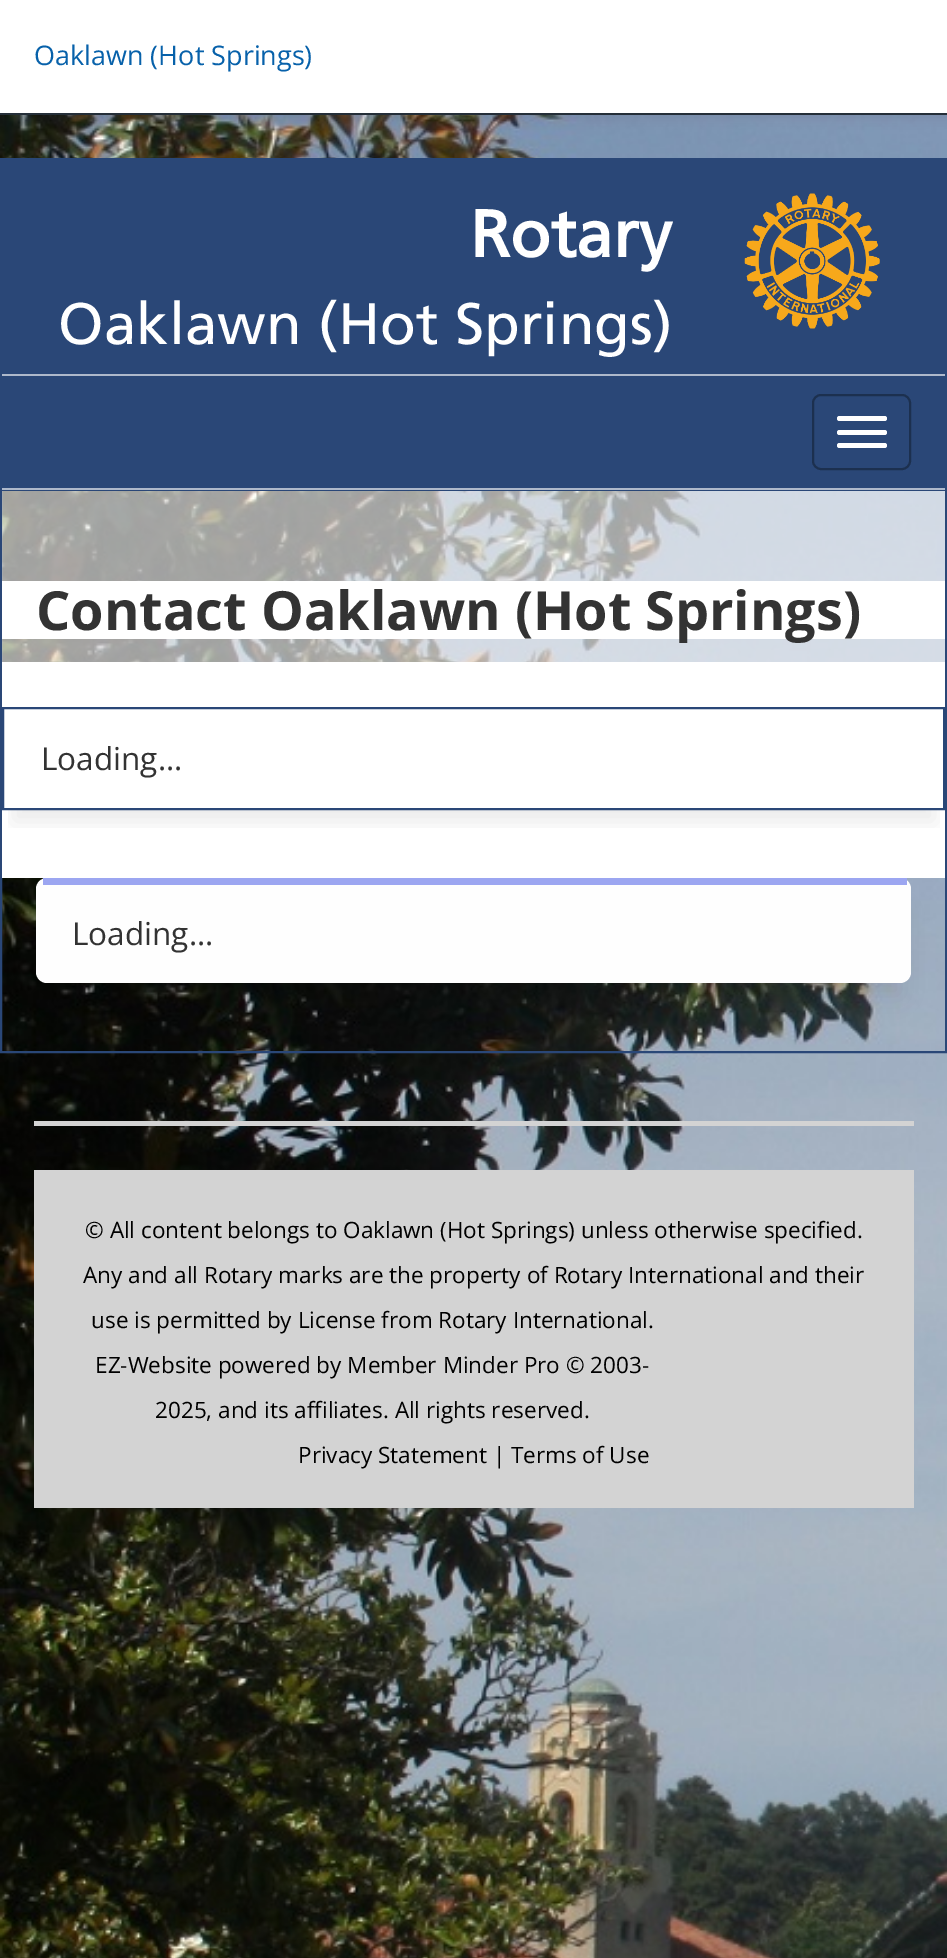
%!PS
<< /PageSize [947 1958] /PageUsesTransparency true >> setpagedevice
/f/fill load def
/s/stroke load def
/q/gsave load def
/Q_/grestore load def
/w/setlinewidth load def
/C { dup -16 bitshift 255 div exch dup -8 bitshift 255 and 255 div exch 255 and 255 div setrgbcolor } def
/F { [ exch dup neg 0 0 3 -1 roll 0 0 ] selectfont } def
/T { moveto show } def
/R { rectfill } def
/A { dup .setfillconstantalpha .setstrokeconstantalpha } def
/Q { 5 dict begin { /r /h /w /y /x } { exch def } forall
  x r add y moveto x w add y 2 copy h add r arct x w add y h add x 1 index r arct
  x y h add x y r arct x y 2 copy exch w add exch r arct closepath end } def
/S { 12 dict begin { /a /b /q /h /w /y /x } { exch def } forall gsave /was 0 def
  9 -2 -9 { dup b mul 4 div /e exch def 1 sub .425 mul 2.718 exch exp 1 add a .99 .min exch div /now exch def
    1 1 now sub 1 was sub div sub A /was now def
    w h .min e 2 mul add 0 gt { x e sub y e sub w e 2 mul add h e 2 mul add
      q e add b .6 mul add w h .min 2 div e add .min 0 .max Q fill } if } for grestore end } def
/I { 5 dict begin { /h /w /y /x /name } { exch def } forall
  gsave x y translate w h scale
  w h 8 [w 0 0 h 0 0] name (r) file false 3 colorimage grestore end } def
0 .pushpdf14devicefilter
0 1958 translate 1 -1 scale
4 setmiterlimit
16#FFFFFF C
0 0 947 1958 R
(1.rgb) 0 115 947 1843 I
16#000000 C
0 2 947 115 0 5.5 .07 S
16#FFFFFF C
0 0 947 113 R
16#242E38 C
0 113 947 2 R
/OpenSans-Regular 27 F
16#0761AA C
(Oaklawn \(Hot Springs\)) 34 65 T
16#2A4777 C
2 w
1 159 945 893 rectstroke
2 160 943 214 R
/Frutiger-Bold 66 F
16#FFFFFF C
(Rotary) 470 257 T
/Frutiger-Regular 58.5 F
(Oaklawn \(Hot Springs\)) 58 344 T
(2.rgb) 744 193 136 136 I
16#2A4777 C
2 376 943 115 R
16#AEB9CB C
2 374 943 2 R
2 488 943 2 R
16#1C304F C
813 395 97 74 8 Q s
16#FFFFFF C
837 416 50 5 2.5 Q f
837 430 50 5 2.5 Q f
837 443 50 5 2.5 Q f
0.62 A
2 491 943 171 R
1 A
2 581 943 58 R
/OpenSans-Bold 54 F
16#333333 C
(Contact Oaklawn \(Hot Springs\)) 36 630 T
16#FFFFFF C
2 662 943 216 R
q
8 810 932 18 rectclip
16#000000 C
14 740 920 81 0 11 .08 S
Q_
16#2A4777 C
3 708 941 101 rectstroke
/OpenSans-Regular 31.5 F
16#333333 C
(Loading...) 41 770 T
16#000000 C
47 911 853 84 0 11 .08 S
16#FEFEFE C
36 878 875 105 11 Q f
16#9CA6F1 C
43 878 864 7 R
16#333333 C
(Loading...) 72 945 T
16#D3D3D3 C
34 1121 880 5 R
34 1170 880 338 R
/OpenSans-Regular 22.5 F
16#000000 C
(© All content belongs to Oaklawn \(Hot Springs\) unless otherwise specified.) 85 1238 T
(Any and all Rotary marks are the property of Rotary International and their) 83 1283 T
(use is permitted by License from Rotary International.) 91 1328 T
(EZ-Website powered by Member Minder Pro © 2003-) 95 1373 T
(2025, and its affiliates. All rights reserved.) 155 1418 T
(Privacy Statement | Terms of Use) 298 1463 T
.poppdf14devicefilter showpage
